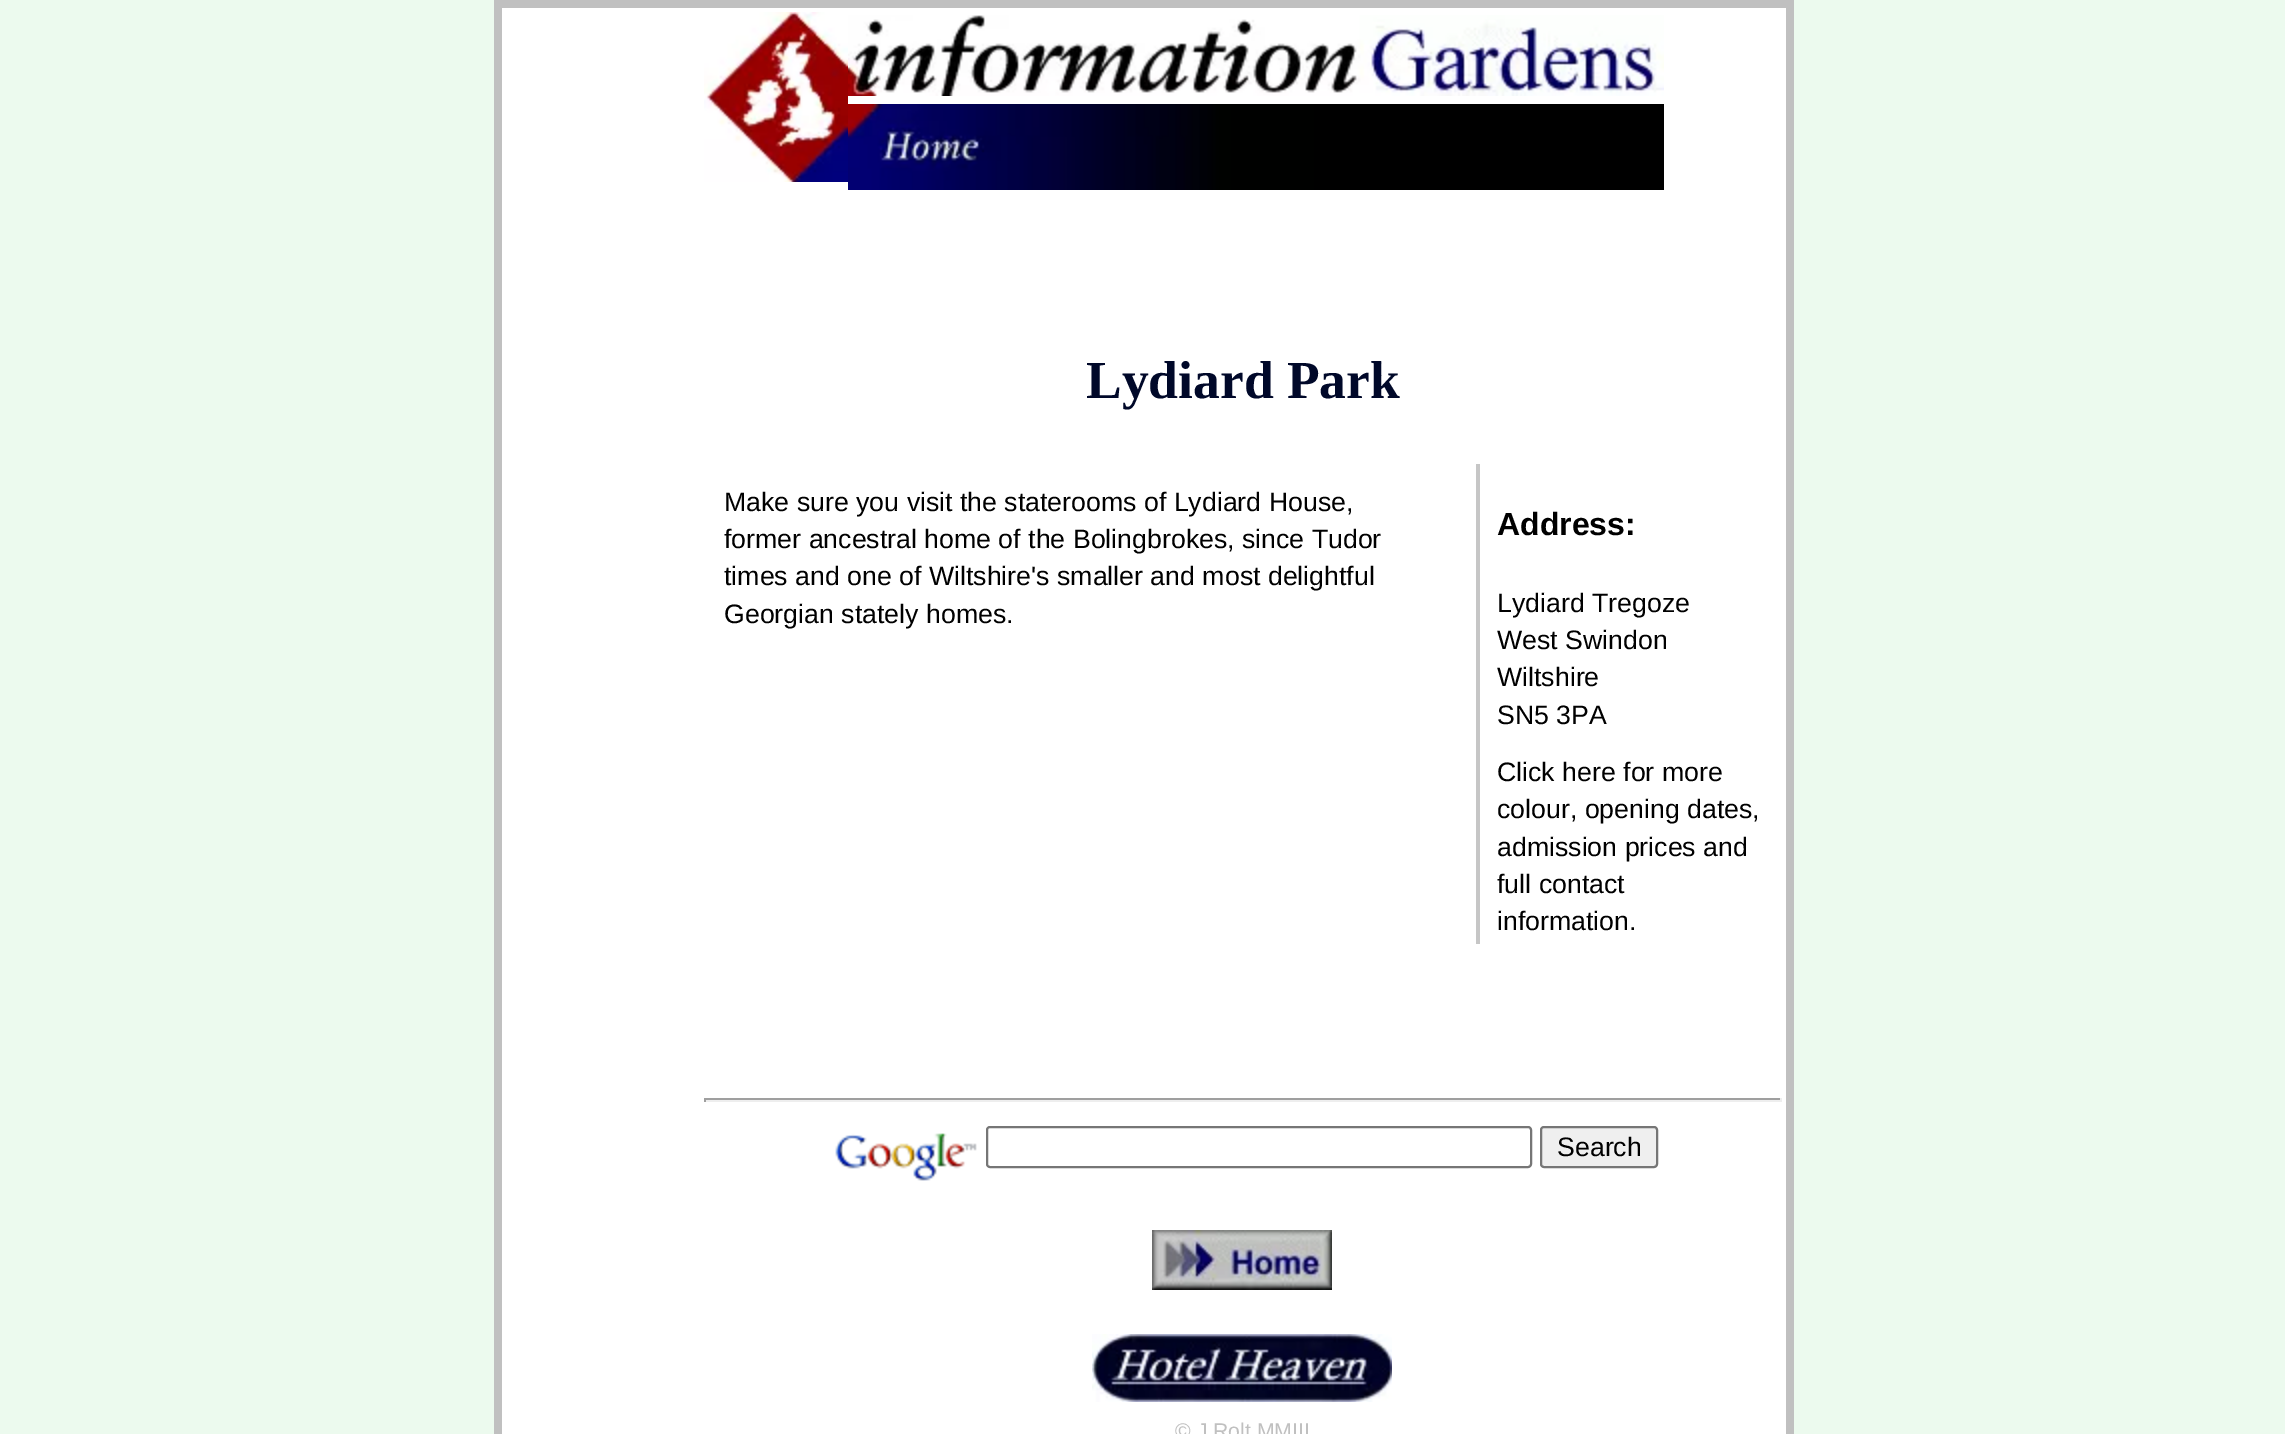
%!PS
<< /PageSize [2285 1434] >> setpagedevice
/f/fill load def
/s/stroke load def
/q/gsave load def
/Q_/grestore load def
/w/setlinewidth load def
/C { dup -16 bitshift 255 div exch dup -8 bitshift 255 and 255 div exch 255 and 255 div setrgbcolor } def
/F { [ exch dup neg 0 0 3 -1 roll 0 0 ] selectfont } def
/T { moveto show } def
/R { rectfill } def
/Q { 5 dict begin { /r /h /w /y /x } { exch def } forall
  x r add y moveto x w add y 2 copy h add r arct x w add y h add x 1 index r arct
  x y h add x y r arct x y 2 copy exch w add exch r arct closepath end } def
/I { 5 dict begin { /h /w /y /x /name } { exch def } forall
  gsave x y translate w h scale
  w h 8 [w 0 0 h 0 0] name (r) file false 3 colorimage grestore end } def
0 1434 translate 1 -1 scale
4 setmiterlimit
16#ECFAEE C
0 0 2285 1434 R
16#C0C0C0 C
494 0 1300 1434 R
16#FFFFFF C
502 8 1284 1426 R
(1.rgb) 704 12 144 170 I
(2.rgb) 848 15 816 81 I
(3.rgb) 848 104 466 86 I
16#000000 C
1314 104 350 86 R
/LiberationSerif-Bold 53.5 F
16#000829 C
(Lydiard Park) 1086 398 T
/LiberationSans-Regular 26.7 F
16#000000 C
(Make sure you visit the staterooms of Lydiard House,) 724 511 T
(former ancestral home of the Bolingbrokes, since Tudor) 724 548 T
(times and one of Wiltshire's smaller and most delightful) 724 585 T
(Georgian stately homes.) 724 623 T
16#C6C6C6 C
1476 464 4 480 R
/LiberationSans-Bold 32 F
16#000000 C
(Address:) 1497 535 T
/LiberationSans-Regular 26.7 F
(Lydiard Tregoze) 1497 612 T
(West Swindon) 1497 649 T
(Wiltshire) 1497 686 T
(SN5 3PA) 1497 724 T
(Click here for more) 1497 781 T
(colour, opening dates,) 1497 818 T
(admission prices and) 1497 856 T
(full contact) 1497 893 T
(information.) 1497 930 T
16#9F9F9F C
704 1098 1078 2 R
16#EEEEEE C
1780 1098 2 4 R
704 1100 1078 2 R
16#9F9F9F C
704 1098 2 4 R
(4.rgb) 835 1133 142 48 I
16#767676 C
2 w
987 1127 544 40 3 Q s
16#EFEFEF C
1541 1127 116 40 3 Q q f Q_
16#767676 C
s
16#000000 C
(Search) 1557 1156 T
(5.rgb) 1152 1230 180 60 I
(6.rgb) 1092 1334 300 68 I
/LiberationSans-Regular 21.25 F
16#C0C0C0 C
(© J Rolt MMIII) 1175 1438 T
showpage
